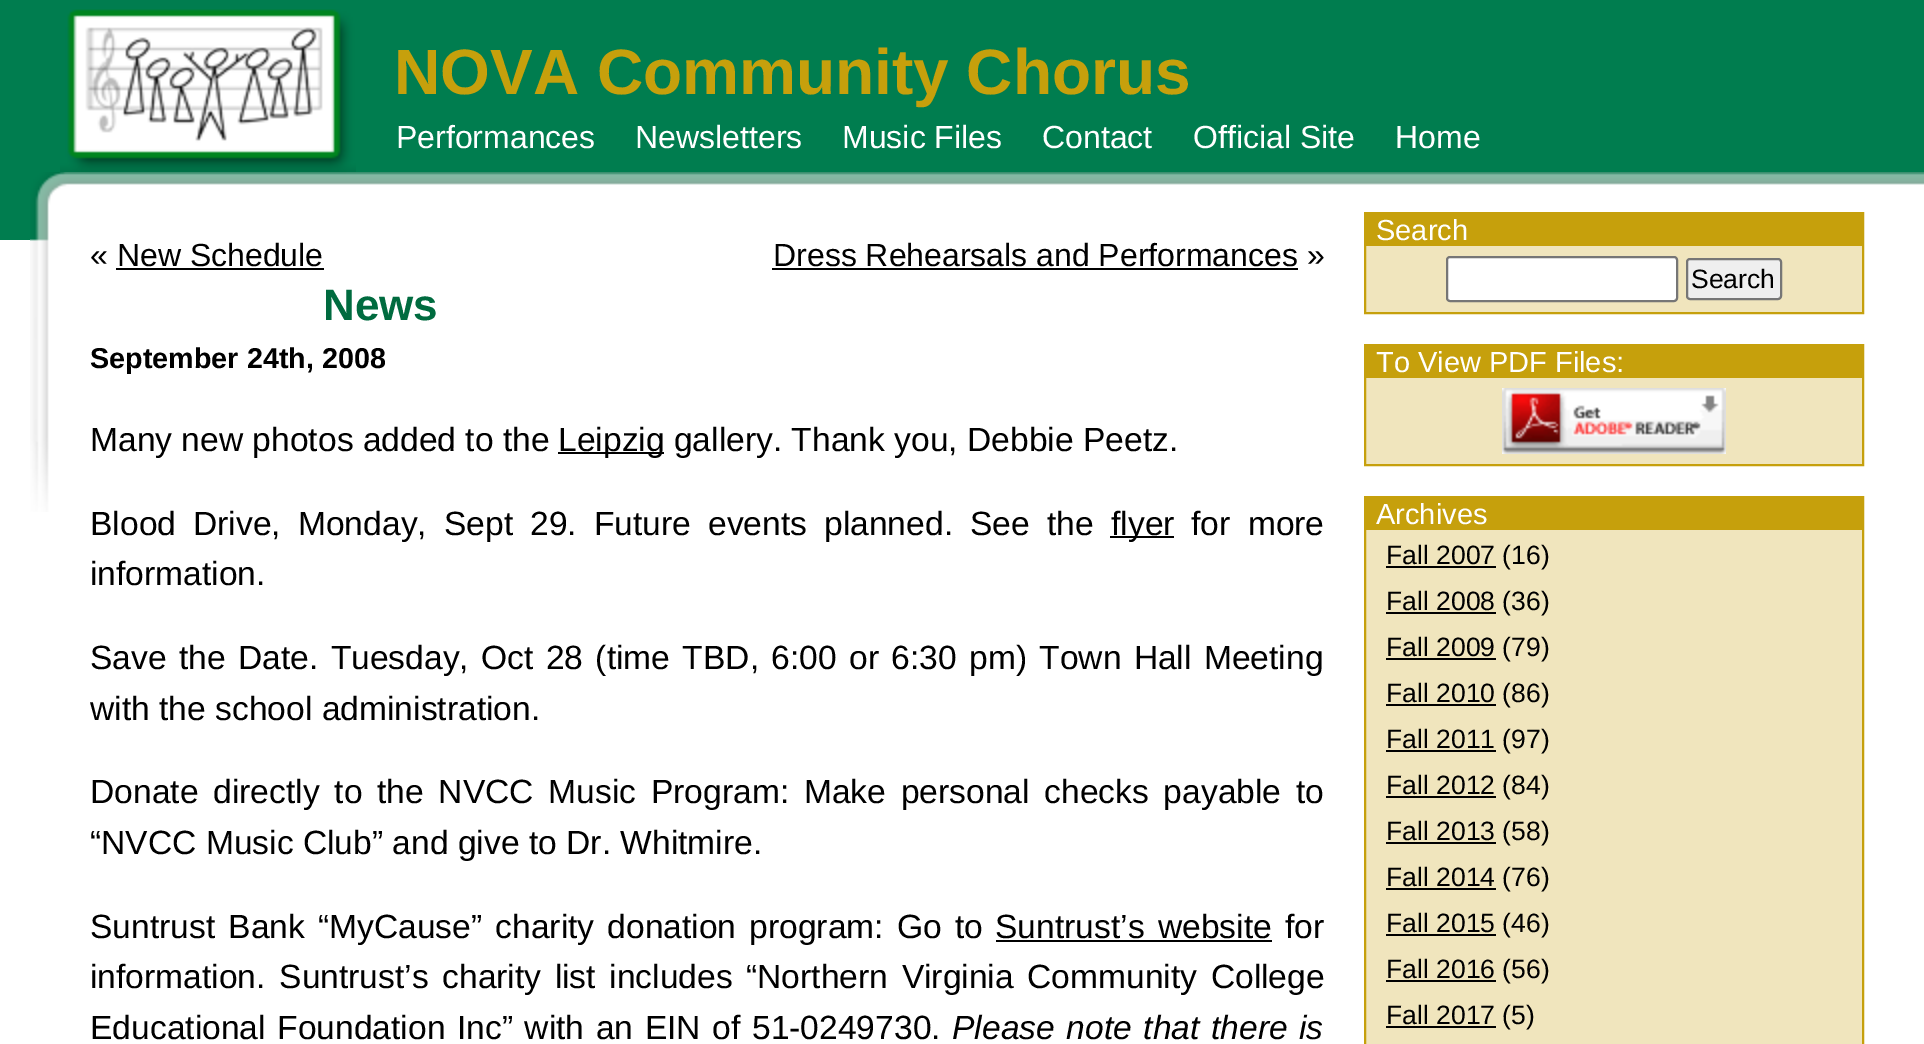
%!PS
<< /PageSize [1924 1044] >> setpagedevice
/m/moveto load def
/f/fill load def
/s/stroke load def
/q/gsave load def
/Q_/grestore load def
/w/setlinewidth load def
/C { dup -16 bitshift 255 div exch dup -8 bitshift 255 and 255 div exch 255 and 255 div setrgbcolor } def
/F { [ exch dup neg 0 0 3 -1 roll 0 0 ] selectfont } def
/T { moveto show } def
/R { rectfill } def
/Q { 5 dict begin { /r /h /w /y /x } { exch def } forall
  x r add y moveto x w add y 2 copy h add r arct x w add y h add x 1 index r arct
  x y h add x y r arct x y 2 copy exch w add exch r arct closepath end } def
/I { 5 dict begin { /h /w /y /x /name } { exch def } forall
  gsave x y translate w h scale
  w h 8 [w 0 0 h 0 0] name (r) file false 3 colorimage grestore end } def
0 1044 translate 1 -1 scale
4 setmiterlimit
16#FFFFFF C
0 0 1924 1044 R
16#007D4F C
0 0 1924 240 R
(1.rgb) 60 9 296 163 I
/LiberationSans-Bold 64 F
16#C6A00C C
(NOVA Community Chorus) 394 94 T
/LiberationSans-Regular 32 F
16#FFFFFF C
(Performances) 396 148 T
(Newsletters) 635 148 T
(Music Files) 842 148 T
(Contact) 1042 148 T
(Official Site) 1193 148 T
(Home) 1395 148 T
(2.rgb) 30 172 1894 340 I
16#000000 C
(« New Schedule) 90 266 T
116 268 208 2 R
(Dress Rehearsals and Performances ») 773 266 T
772 268 526 2 R
16#F0E5BD C
1366 246 496 66 R
16#C6A00C C
2 w
1365 213 498 100 rectstroke
1366 214 496 32 R
/LiberationSans-Regular 29 F
16#FFFFFF C
(Search) 1376 240 T
1447 257 230 44 3 Q q f Q_
16#767676 C
s
16#EFEFEF C
1687 259 94 40 3 Q q f Q_
16#767676 C
s
/LiberationSans-Regular 26.5 F
16#000000 C
(Search) 1691 288 T
16#F0E5BD C
1366 378 496 86 R
16#C6A00C C
1365 345 498 120 rectstroke
1366 346 496 32 R
/LiberationSans-Regular 29 F
16#FFFFFF C
(To View PDF Files:) 1376 372 T
(3.rgb) 1502 388 224 66 I
16#F0E5BD C
1366 530 496 514 R
16#C6A00C C
1365 497 498 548 rectstroke
1366 498 496 32 R
16#FFFFFF C
(Archives) 1376 524 T
16#000000 C
1386 566 110 2 R
/LiberationSans-Regular 26.5 F
(Fall 2007 \(16\)) 1386 564 T
1386 612 110 2 R
(Fall 2008 \(36\)) 1386 610 T
1386 658 110 2 R
(Fall 2009 \(79\)) 1386 656 T
1386 704 110 2 R
(Fall 2010 \(86\)) 1386 702 T
1386 750 110 2 R
(Fall 2011 \(97\)) 1386 748 T
1386 796 110 2 R
(Fall 2012 \(84\)) 1386 794 T
1386 842 110 2 R
(Fall 2013 \(58\)) 1386 840 T
1386 888 110 2 R
(Fall 2014 \(76\)) 1386 886 T
1386 934 110 2 R
(Fall 2015 \(46\)) 1386 932 T
1386 980 110 2 R
(Fall 2016 \(56\)) 1386 978 T
1386 1026 110 2 R
(Fall 2017 \(5\)) 1386 1024 T
/LiberationSans-Bold 44 F
16#006B3F C
(News) 323 320 T
/LiberationSans-Bold 28.75 F
16#000000 C
(September 24th, 2008) 90 368 T
/LiberationSans-Regular 33.6 F
(Many new photos added to the) 90 451 T
558 452 106 2 R
(Leipzig gallery. Thank you, Debbie Peetz.) 558 451 T
90 535 m 7.75 0 32 (Blood Drive, Monday, Sept 29. Future events planned. See the) widthshow
1110 536 64 2 R
(flyer) 1111 535 T
1191 535 m 8 0 32 (for more) widthshow
(information.) 90 585 T
90 669 m 3 0 32 (Save the Date. Tuesday, Oct 28 \(time TBD, 6:00 or 6:30 pm\) Town Hall Meeting) widthshow
(with the school administration.) 90 720 T
90 803 m 5.4 0 32 (Donate directly to the NVCC Music Program: Make personal checks payable to) widthshow
(“NVCC Music Club” and give to Dr. Whitmire.) 90 854 T
90 938 m 3.75 0 32 (Suntrust Bank “MyCause” charity donation program: Go to) widthshow
995 938 m 4 0 32 (Suntrust’s website) widthshow
996 940 276 2 R
(for) 1285 938 T
90 988 m 4.25 0 32 (information. Suntrust’s charity list includes “Northern Virginia Community College) widthshow
90 1039 m 2.25 0 32 (Educational Foundation Inc” with an EIN of 51-0249730.) widthshow
/LiberationSans-Italic 33.6 F
952 1039 m 2.25 0 32 (Please note that there is) widthshow
showpage
